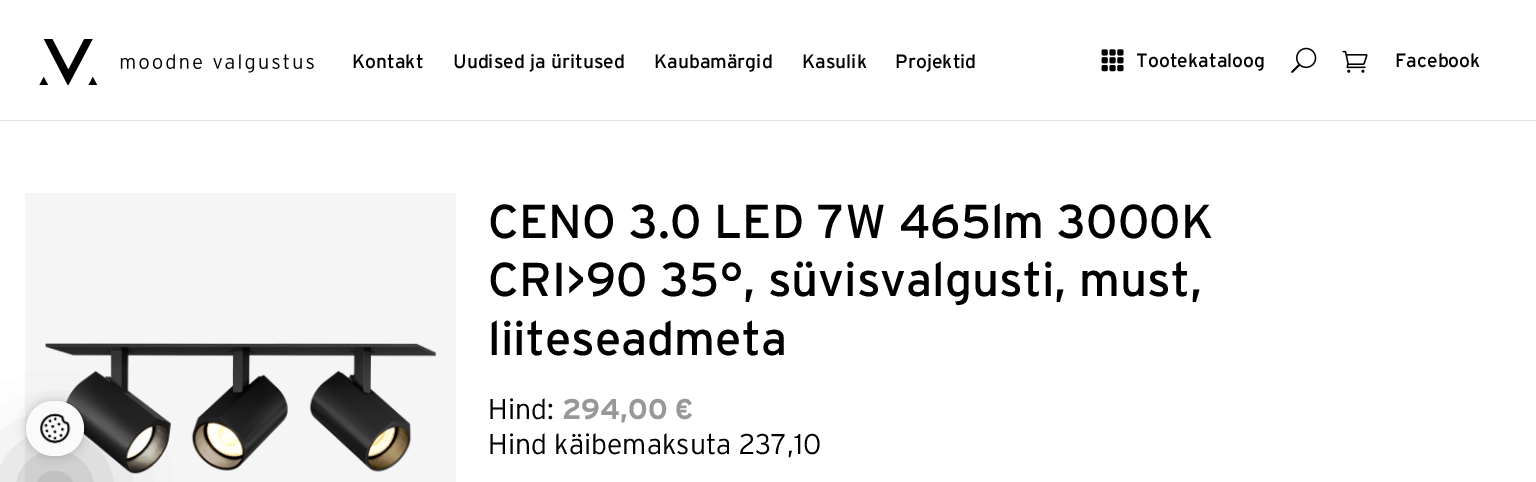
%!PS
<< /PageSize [1536 482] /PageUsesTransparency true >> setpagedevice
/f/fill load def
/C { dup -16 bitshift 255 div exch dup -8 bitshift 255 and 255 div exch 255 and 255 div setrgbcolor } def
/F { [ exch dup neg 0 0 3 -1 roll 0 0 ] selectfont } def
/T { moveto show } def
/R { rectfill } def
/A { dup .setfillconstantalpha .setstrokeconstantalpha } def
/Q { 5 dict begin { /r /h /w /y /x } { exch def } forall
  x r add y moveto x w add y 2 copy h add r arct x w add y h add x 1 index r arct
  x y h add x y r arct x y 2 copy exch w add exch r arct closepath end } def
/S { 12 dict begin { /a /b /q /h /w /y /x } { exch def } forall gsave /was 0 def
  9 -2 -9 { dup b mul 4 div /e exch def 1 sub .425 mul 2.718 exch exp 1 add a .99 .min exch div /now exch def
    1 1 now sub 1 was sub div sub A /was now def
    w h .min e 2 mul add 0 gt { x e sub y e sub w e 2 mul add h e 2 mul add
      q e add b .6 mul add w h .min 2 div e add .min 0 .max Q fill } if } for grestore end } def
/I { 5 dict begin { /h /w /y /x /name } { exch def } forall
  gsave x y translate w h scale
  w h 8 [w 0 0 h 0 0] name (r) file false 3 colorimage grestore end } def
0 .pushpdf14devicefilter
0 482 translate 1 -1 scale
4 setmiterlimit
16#FFFFFF C
0 0 1536 482 R
16#E0E0E0 C
0 120 1536 1 R
(1.rgb) 39 39 275 46 I
/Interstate-Regular 19.25 F
16#000000 C
(Kontakt) 352 68 T
(Uudised ja üritused) 453 68 T
(Kaubamärgid) 654 68 T
(Kasulik) 802 68 T
(Projektid) 895 68 T
(2.rgb) 1101 49 23 23 I
(Tootekataloog) 1136 67 T
(3.rgb) 1291 47 26 26 I
(4.rgb) 1342 50 26 23 I
(Facebook) 1395 67 T
16#F5F5F5 C
25 193 431 289 R
(6.rgb) 45 343 392 131 I
16#000000 C
26 461 58 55 27.5 40 .3 S
26 401 58 55 27.5 5 .2 S
16#FAFAFA C
26 401 58 55 27.5 Q f
(5.rgb) 40 413 31 31 I
/Interstate-Regular 47.5 F
16#000000 C
(CENO 3.0 LED 7W 465lm 3000K) 488 238 T
(CRI>90 35°, süvisvalgusti, must,) 488 296 T
(liiteseadmeta) 488 355 T
/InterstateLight-Light 28.5 F
(Hind:) 488 419 T
/Interstate-Bold 28.5 F
16#989898 C
(294,00 €) 562 419 T
/InterstateLight-Light 28.5 F
16#000000 C
(Hind käibemaksuta 237,10) 488 454 T
.poppdf14devicefilter showpage
